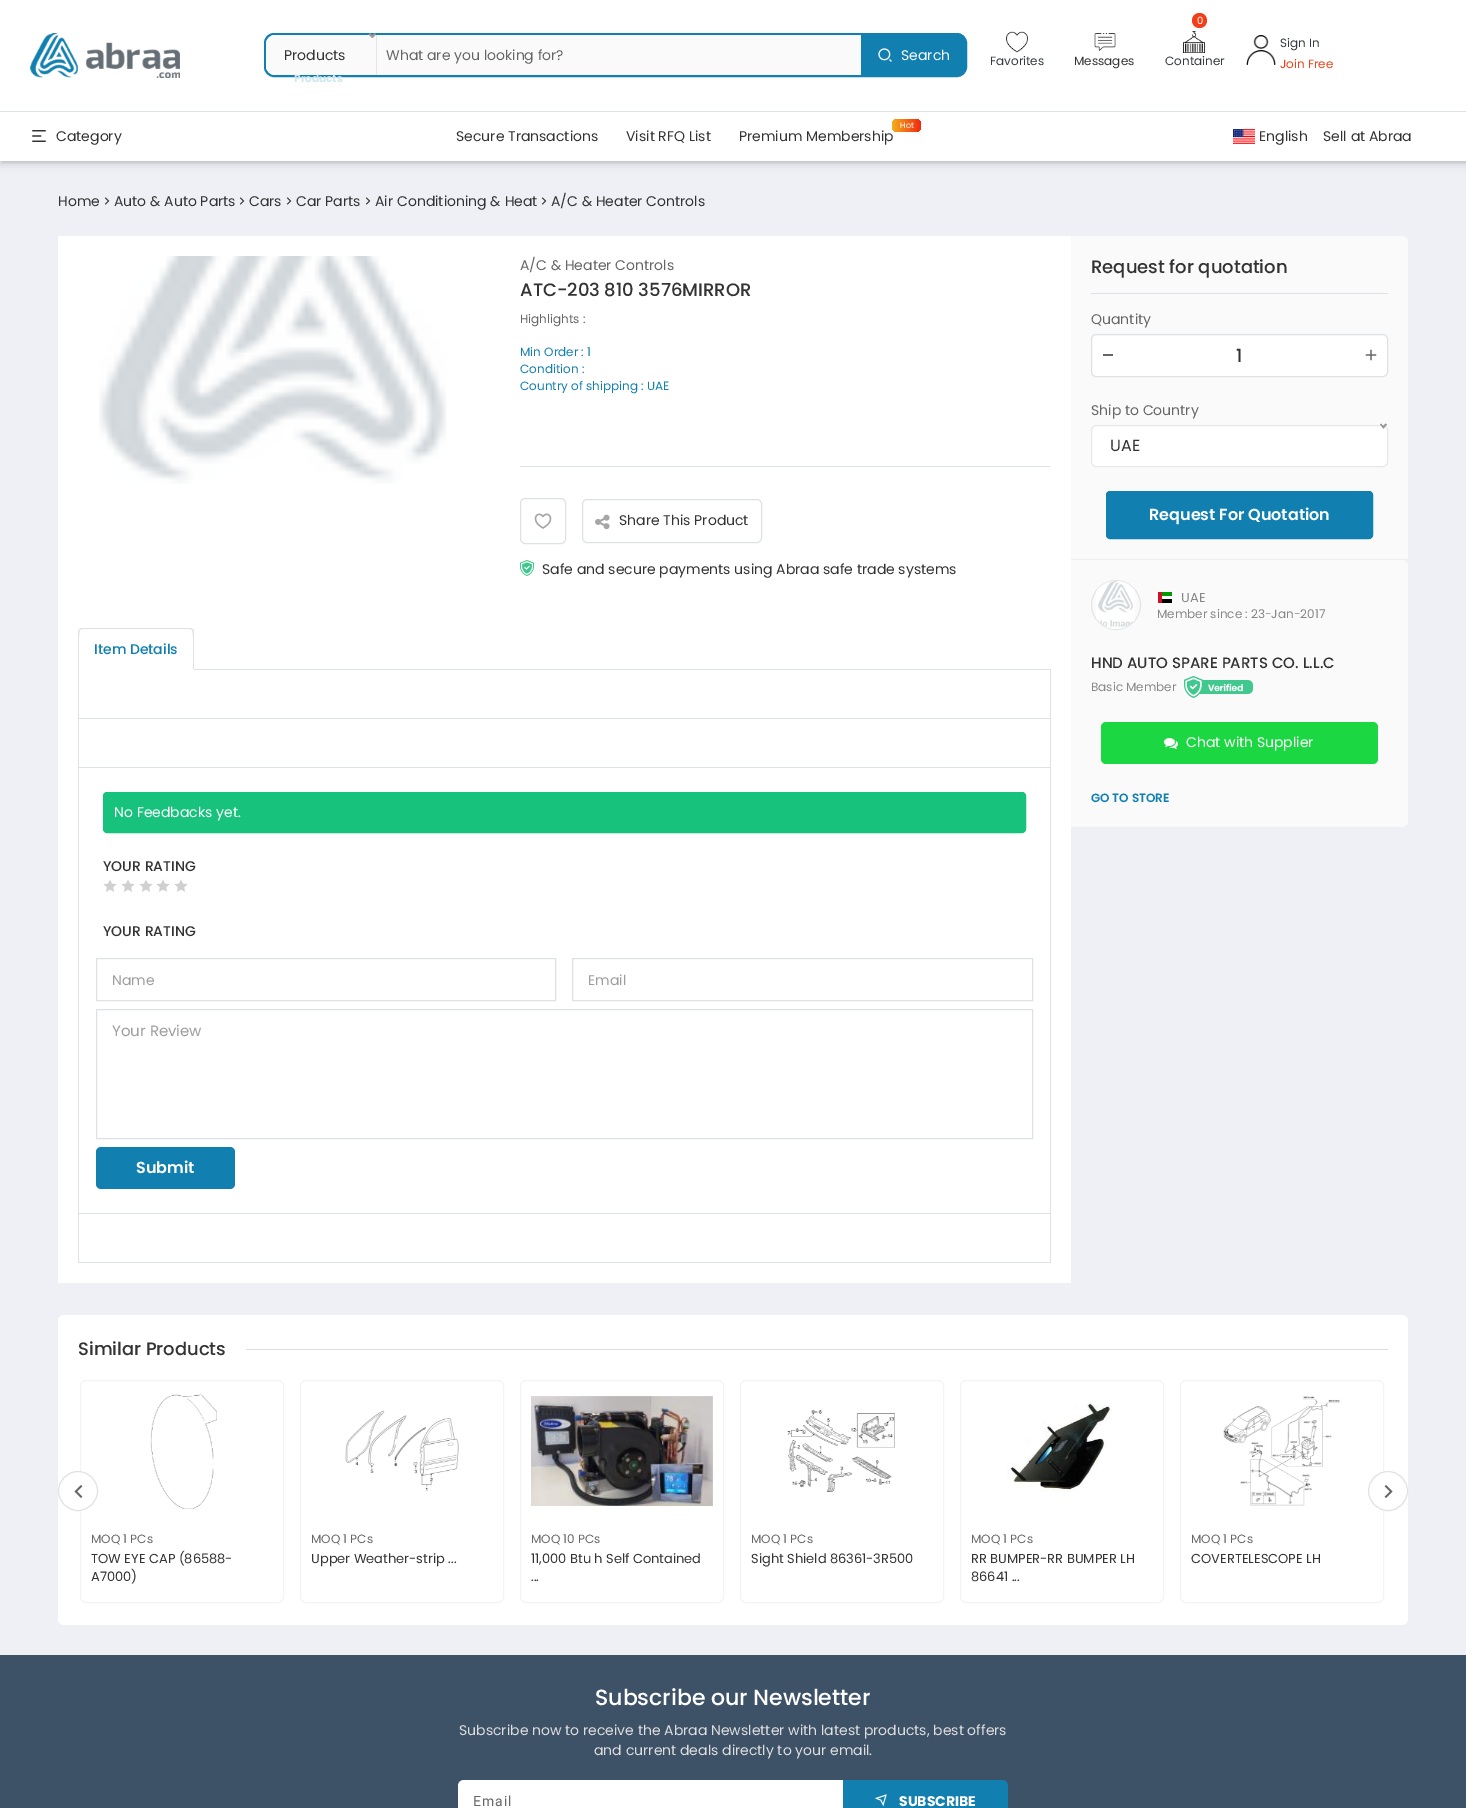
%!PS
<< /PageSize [1466 1808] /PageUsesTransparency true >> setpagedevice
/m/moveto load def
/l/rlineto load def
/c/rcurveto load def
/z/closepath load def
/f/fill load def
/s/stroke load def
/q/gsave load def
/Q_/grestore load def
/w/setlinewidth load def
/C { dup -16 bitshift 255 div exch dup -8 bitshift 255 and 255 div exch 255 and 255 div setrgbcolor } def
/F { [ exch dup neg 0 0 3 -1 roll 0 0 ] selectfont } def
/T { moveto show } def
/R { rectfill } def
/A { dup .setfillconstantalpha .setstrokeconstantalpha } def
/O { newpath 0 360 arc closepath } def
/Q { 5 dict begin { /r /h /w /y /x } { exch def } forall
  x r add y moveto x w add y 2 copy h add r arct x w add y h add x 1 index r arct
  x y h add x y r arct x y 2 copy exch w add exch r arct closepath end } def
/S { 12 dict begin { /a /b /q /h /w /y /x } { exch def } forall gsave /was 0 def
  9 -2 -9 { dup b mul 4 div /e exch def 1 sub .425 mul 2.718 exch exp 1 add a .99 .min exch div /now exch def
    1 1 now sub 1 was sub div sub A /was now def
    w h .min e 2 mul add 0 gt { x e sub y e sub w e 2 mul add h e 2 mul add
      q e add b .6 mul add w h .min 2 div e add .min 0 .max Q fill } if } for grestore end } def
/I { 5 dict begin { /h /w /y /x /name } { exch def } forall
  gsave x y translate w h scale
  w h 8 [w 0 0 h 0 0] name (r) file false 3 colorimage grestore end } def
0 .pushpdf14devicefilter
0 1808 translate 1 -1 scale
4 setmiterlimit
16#EFF0F5 C
0 0 1466 1808 R
16#000000 C
-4 -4 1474 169 0 4 .1 S
16#FFFFFF C
0 0 1466 161 R
16#DEE2E6 C
0 111 1466 1 R
(1.rgb) 30 33 150 45 I
16#1180B0 C
2 w
265 34 701 42 9 Q s
16#FAFAFA C
266 35 699 40 10 Q f
276 35 m 101 0 l 0 40 l -101 0 l -5.5 0 -10 -4.5 -10 -10 c 0 -20 l 0 -5.5 4.5 -10 10 -10 c z f
16#E6E6E6 C
376 35 1 40 R
16#999999 C
374.5 33 m 1.5 1.5 l -3.5 3.5 l -1.5 -1.5 l z f
370 33 m 3.5 3.5 l -1 1.5 l -4 -3.5 l z f
/Poppins-Regular 14 F
16#333333 C
(Products) 284 60 T
/Poppins-Bold 10.5 F
16#D1E7F0 C
(Products) 294 82 T
/Poppins-Regular 14 F
16#666666 C
(What are you looking for?) 386 60 T
16#1180B0 C
861 34 m 95 0 l 5.5 0 10 4.5 10 10 c 0 22 l 0 5.5 -4.5 10 -10 10 c -95 0 l z f
(2.rgb) 878 48 14 14 I
16#FFFFFF C
(Search) 901 60 T
(3.rgb) 1006 31 22 22 I
/Poppins-Regular 12 F
16#343A40 C
(Favorites) 990 65 T
(4.rgb) 1094 33 22 18 I
16#333333 C
(Messages) 1074 65 T
16#F13F1A C
1199.5 20.5 7.5 O f
/Poppins-Regular 10 F
16#FFFFFF C
(0) 1197 24 T
(5.rgb) 1183 31 22 22 I
/Poppins-Regular 12 F
16#343A40 C
(Container) 1165 65 T
(6.rgb) 1246 35 30 30 I
(Sign In) 1280 47 T
16#F13F1A C
(Join Free) 1280 68 T
q
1 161 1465 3 rectclip
16#000000 C
2 114 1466 49 0 1.5 .1 S
Q_
(7.rgb) 32 130 14 12 I
/Poppins-Regular 14 F
16#333333 C
(Category) 56 141 T
(Secure Transactions) 456 141 T
(Visit RFQ List) 626 141 T
(Premium Membership) 739 141 T
q 892 119 29 13 6 Q clip newpath
<< /ShadingType 2 /ColorSpace /DeviceRGB /Coords [892 126 921 126] /Extend [true true] /Function << /FunctionType 2 /Domain [0 1] /C0 [.961 .686 .098] /C1 [.945 .153 .067] /N 1 >> >> shfill Q_
/Poppins-Regular 8 F
16#FFFFFF C
(Hot) 900 128 T
(8.rgb) 1233 129 22 15 I
/Poppins-Regular 14 F
16#333333 C
(English) 1259 141 T
(Sell at Abraa) 1323 141 T
(Home) 58 206 T
(9.rgb) 104 197 6 8 I
(Auto & Auto Parts) 114 206 T
(9.rgb) 239 197 6 8 I
(Cars) 249 206 T
(9.rgb) 286 197 6 8 I
(Car Parts) 296 206 T
(9.rgb) 365 197 6 8 I
(Air Conditioning & Heat) 375 206 T
(9.rgb) 541 197 6 8 I
(A/C & Heater Controls) 551 206 T
16#FFFFFF C
58 236 1013 1047 R
(10.rgb) 99 256 348 228 I
16#666666 C
(A/C & Heater Controls) 520 270 T
/Poppins-Medium 18 F
16#333333 C
(ATC-203 810 3576MIRROR) 520 296 T
/Poppins-Regular 12 F
16#666666 C
(Highlights :) 520 323 T
16#1180B0 C
(Min Order : 1) 520 356 T
(Condition :) 520 373 T
(Country of shipping : UAE) 520 390 T
16#DEE2E6 C
520 466 530 1 R
1 w
520.5 498.5 45 45 4.5 Q s
(11.rgb) 534 513 18 16 I
582.5 499.5 179 43 4.5 Q s
(12.rgb) 595 514 15 16 I
/Poppins-Regular 14 F
16#333333 C
(Share This Product) 619 525 T
(13.rgb) 520 560 14 16 I
(Safe and secure payments using Abraa safe trade systems) 542 574 T
16#DEE2E6 C
194 669 857 1 R
82 628 m -3 1 l 1 1 l 2 -1 l 108 0 l 2 1 l 1 -1 l -3 -1 l z f
194 670 m 0 -38 l 0 -1 0 -2 -1 -3 c -1 1 l 2 2 1 34 1 39 c z f
16#FFFFFF C
194 670 m -1 -1 l -114 0 l -1 1 l z f
16#DEE2E6 C
78 670 m 1 -1 l 0 -5 -1 -37 1 -39 c -1 -1 l -1 3 l z f
/Poppins-Medium 14 F
16#1180B0 C
(Item Details) 94 654 T
16#DEE2E6 C
1050 670 1 593 R
78 718 973 1 R
78 670 1 49 R
78 767 973 1 R
78 719 1 49 R
78 1213 973 1 R
78 768 1 446 R
16#17C27D C
103.5 792.5 922 40 3.5 Q q f Q_
s
/Poppins-Regular 14 F
16#FFFFFF C
(No Feedbacks yet.) 114 817 T
/Poppins-Medium 14 F
16#333333 C
(YOUR RATING) 103 871 T
(14.rgb) 103 879 14 13 I
(14.rgb) 121 879 14 13 I
(14.rgb) 139 879 14 13 I
(14.rgb) 156 879 14 13 I
(14.rgb) 174 879 14 13 I
(YOUR RATING) 103 936 T
16#DEE2E6 C
96.5 958.5 459 42 rectstroke
/Poppins-Regular 14 F
16#9E9D9D C
(Name) 112 985 T
16#DEE2E6 C
572.5 958.5 460 42 rectstroke
16#9E9D9D C
(Email) 588 985 T
16#DEE2E6 C
96.5 1009.5 936 129 rectstroke
/Poppins-Regular 15 F
16#9E9D9D C
(Your Review) 112 1036 T
16#1180B0 C
96 1147 139 42 5 Q f
/Poppins-SemiBold 16 F
16#FFFFFF C
(Submit) 136 1173 T
16#DEE2E6 C
78 1262 973 1 R
78 1214 1 49 R
16#FAFAFA C
1071 236 m 331 0 l 3.5 0 6 2.5 6 6 c 0 318 l -337 0 l z f
16#EEEEEE C
1071 559 337 1 R
16#DEE2E6 C
1091 293 297 1 R
/Poppins-Medium 18 F
16#333333 C
(Request for quotation) 1091 273 T
/Poppins-Regular 14 F
16#666666 C
(Quantity) 1091 324 T
16#FFFFFF C
1091.5 334.5 296 42 4.5 Q q f Q_
16#DEE2E6 C
s
16#666666 C
1103 354 10 2 R
/Poppins-Medium 18 F
16#333333 C
(1) 1236 362 T
(15.rgb) 1365 349 12 12 I
/Poppins-Regular 14 F
16#666666 C
(Ship to Country) 1091 415 T
16#FFFFFF C
1091.5 425.5 296 41 4.5 Q q f Q_
16#E8E8E8 C
s
16#999999 C
1385.5 423.5 m 1.5 1 l -3.5 4 l -1.5 -1.5 l z f
1381 423.5 m 3.5 3.5 l -1 1.5 l -3.5 -4 l z f
/Poppins-Regular 16 F
16#333333 C
(UAE) 1110 451 T
16#1180B0 C
1106.5 491.5 266 47 3.5 Q q f Q_
s
/Poppins-SemiBold 16 F
16#FFFFFF C
(Request For Quotation) 1149 520 T
16#FAFAFA C
1071 560 m 331 0 l 3.5 0 6 2.5 6 6 c 0 255 l 0 3.5 -2.5 6 -6 6 c -331 0 l z f
16#E5E5E5 C
1116 605 24.5 O s
(16.rgb) 1096 581 39 48 I
(17.rgb) 1158 592 14 11 I
/Poppins-Regular 13 F
16#878787 C
(UAE) 1181 602 T
/Poppins-Regular 12 F
(Member since : 23-Jan-2017) 1157 618 T
/Poppins-Medium 15 F
16#333333 C
(HND AUTO SPARE PARTS CO. L.L.C) 1091 668 T
/Poppins-Regular 12 F
16#878787 C
(Basic Member) 1091 691 T
(18.rgb) 1184 676 69 22 I
16#1BD741 C
1101 722 277 42 5 Q f
(19.rgb) 1164 738 14 11 I
/Poppins-Regular 14 F
16#FFFFFF C
(Chat with Supplier) 1186 747 T
/Poppins-SemiBold 12 F
16#1180B0 C
(GO TO STORE) 1091 802 T
16#FFFFFF C
58 1315 1350 310 6 Q f
/Poppins-Medium 18 F
16#333333 C
(Similar Products) 78 1355 T
16#DDDDDD C
246 1349 1142 1 R
16#F4F4F4 C
80.5 1380.5 203 222 5.5 Q s
16#FFFFFF C
78 1491 19.5 O q f Q_
16#E2E2E2 C
s
(20.rgb) 74 1485 9 13 I
16#F4F4F4 C
1180.5 1380.5 203 222 5.5 Q s
16#FFFFFF C
1388 1491 19.5 O q f Q_
16#E2E2E2 C
s
(21.rgb) 1384 1485 9 13 I
(22.rgb) 150 1394 67 115 I
/Poppins-Regular 12 F
16#666666 C
(MOQ 1 PCs) 91 1543 T
/Poppins-Regular 13 F
16#333333 C
(TOW EYE CAP \(86588-) 91 1563 T
(A7000\)) 91 1581 T
16#F4F4F4 C
300.5 1380.5 203 222 5.5 Q s
(23.rgb) 345 1410 114 81 I
/Poppins-Regular 12 F
16#666666 C
(MOQ 1 PCs) 311 1543 T
/Poppins-Regular 13 F
16#333333 C
(Upper Weather-strip ...) 311 1563 T
16#F4F4F4 C
520.5 1380.5 203 222 5.5 Q s
(24.rgb) 531 1396 182 110 I
/Poppins-Regular 12 F
16#666666 C
(MOQ 10 PCs) 531 1543 T
/Poppins-Regular 13 F
16#333333 C
(11,000 Btu h Self Contained) 531 1563 T
(...) 531 1581 T
16#F4F4F4 C
740.5 1380.5 203 222 5.5 Q s
(25.rgb) 787 1410 108 82 I
/Poppins-Regular 12 F
16#666666 C
(MOQ 1 PCs) 751 1543 T
/Poppins-Regular 13 F
16#333333 C
(Sight Shield 86361-3R500) 751 1563 T
16#F4F4F4 C
960.5 1380.5 203 222 5.5 Q s
(26.rgb) 1007 1401 105 93 I
/Poppins-Regular 12 F
16#666666 C
(MOQ 1 PCs) 971 1543 T
/Poppins-Regular 13 F
16#333333 C
(RR BUMPER-RR BUMPER LH) 971 1563 T
(86641 ...) 971 1581 T
(27.rgb) 1223 1396 118 110 I
/Poppins-Regular 12 F
16#666666 C
(MOQ 1 PCs) 1191 1543 T
/Poppins-Regular 13 F
16#333333 C
(COVERTELESCOPE LH) 1191 1563 T
16#3D5167 C
0 1655 1466 153 R
/Poppins-Medium 22 F
16#FFFFFF C
(Subscribe our Newsletter) 595 1705 T
/Poppins-Regular 14 F
16#DEDEDE C
(Subscribe now to receive the Abraa Newsletter with latest products, best offers) 459 1735 T
(and current deals directly to your email.) 594 1755 T
16#FFFFFF C
464 1780 m 379 0 l 0 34 l -379 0 l -3.5 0 -6 -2.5 -6 -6 c 0 -22 l 0 -3.5 2.5 -6 6 -6 c z f
/Roboto-Regular 14 F
16#666666 C
473 1806 m 1 0 (Email) ashow
16#1180B0 C
843 1780 m 159 0 l 3.5 0 6 2.5 6 6 c 0 22 l 0 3.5 -2.5 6 -6 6 c -159 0 l z f
(28.rgb) 875 1794 12 12 I
/Poppins-Bold 14 F
16#FFFFFF C
(SUBSCRIBE) 899 1806 T
.poppdf14devicefilter showpage
